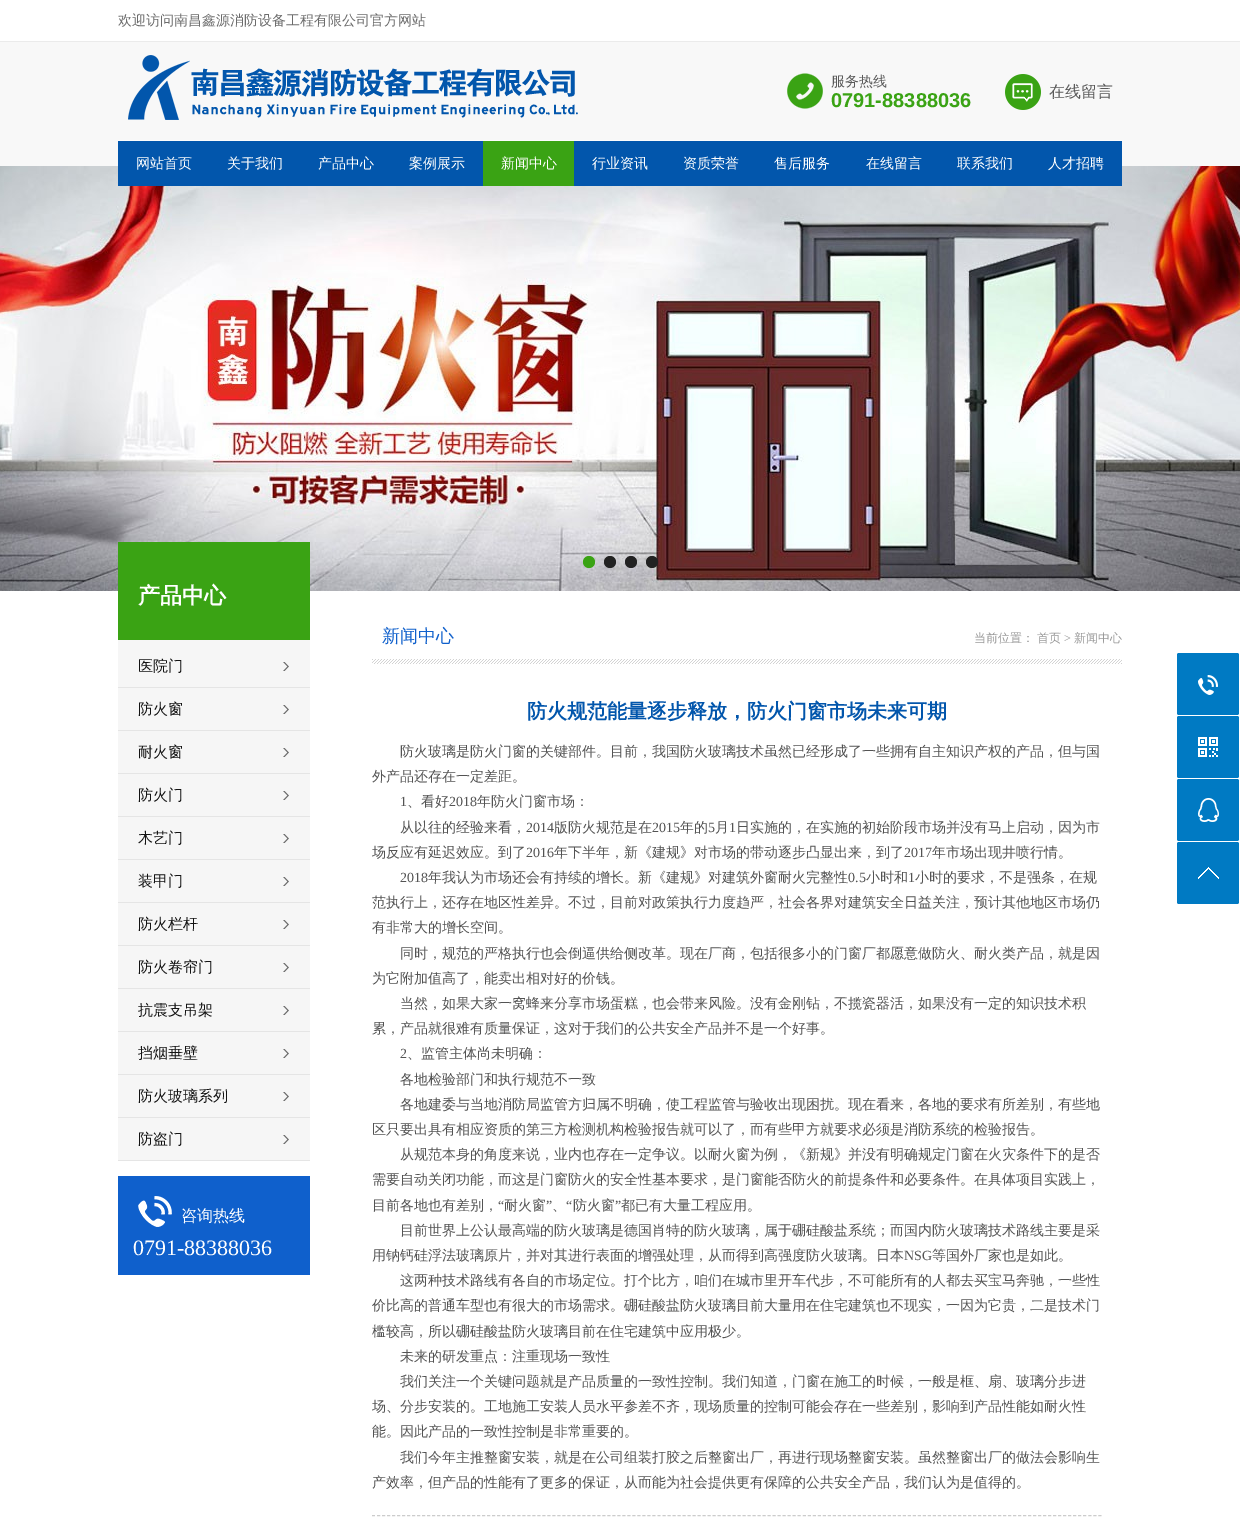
%!PS
<< /PageSize [1240 1522] >> setpagedevice
/m/moveto load def
/l/rlineto load def
/f/fill load def
/s/stroke load def
/C { dup -16 bitshift 255 div exch dup -8 bitshift 255 and 255 div exch 255 and 255 div setrgbcolor } def
/F { [ exch dup neg 0 0 3 -1 roll 0 0 ] selectfont } def
/T { moveto show } def
/R { rectfill } def
/O { newpath 0 360 arc closepath } def
/Q { 5 dict begin { /r /h /w /y /x } { exch def } forall
  x r add y moveto x w add y 2 copy h add r arct x w add y h add x 1 index r arct
  x y h add x y r arct x y 2 copy exch w add exch r arct closepath end } def
/I { 5 dict begin { /h /w /y /x /name } { exch def } forall
  gsave x y translate w h scale
  w h 8 [w 0 0 h 0 0] name (r) file false 3 colorimage grestore end } def
0 1522 translate 1 -1 scale
4 setmiterlimit
16#FFFFFF C
0 0 1240 1522 R
16#EBEBEB C
0 41 1240 1 R
/WenQuanYiZenHei-Medium 14 F
16#6C6C6C C
(欢迎访问南昌鑫源消防设备工程有限公司官方网站) 118 25 T
16#F8F8F8 C
0 42 1240 124 R
(1.rgb) 128 55 450 65 I
(2.rgb) 787 73 36 36 I
16#5A5A5A C
(服务热线) 831 86 T
/LiberationSans-Bold 20 F
16#3AA314 C
(0791-88388036) 831 107 T
(3.rgb) 1005 74 36 36 I
/WenQuanYiZenHei-Medium 16 F
16#5A5A5A C
(在线留言) 1049 97 T
16#FCFCFC C
118 140 1004 1 R
(4.rgb) 0 166 1240 425 I
16#0256AC C
118 141 1004 45 R
/WenQuanYiZenHei-Medium 14 F
16#FFFFFF C
(网站首页) 136 168 T
(关于我们) 227 168 T
(产品中心) 318 168 T
(案例展示) 409 168 T
16#3AA314 C
483 141 91 45 R
16#FFFFFF C
(新闻中心) 501 168 T
(行业资讯) 592 168 T
(资质荣誉) 683 168 T
(售后服务) 774 168 T
(在线留言) 866 168 T
(联系我们) 957 168 T
(人才招聘) 1048 168 T
16#3AA314 C
589 562 6 O f
16#222222 C
610 562 6 O f
631 562 6 O f
652 562 6 O f
16#3AA314 C
118 542 192 98 R
/WenQuanYiZenHei-Bold 22 F
16#FFFFFF C
(产品中心) 138 603 T
16#F6F6F6 C
118 640 192 520 R
16#E5E5E5 C
118 687 192 1 R
(5.rgb) 283 662 6 9 I
/WenQuanYiZenHei-Medium 15 F
16#131313 C
(医院门) 138 671 T
16#E5E5E5 C
118 730 192 1 R
(5.rgb) 283 705 6 9 I
16#131313 C
(防火窗) 138 714 T
16#E5E5E5 C
118 773 192 1 R
(5.rgb) 283 748 6 9 I
16#131313 C
(耐火窗) 138 757 T
16#E5E5E5 C
118 816 192 1 R
(5.rgb) 283 791 6 9 I
16#131313 C
(防火门) 138 800 T
16#E5E5E5 C
118 859 192 1 R
(5.rgb) 283 834 6 9 I
16#131313 C
(木艺门) 138 843 T
16#E5E5E5 C
118 902 192 1 R
(5.rgb) 283 877 6 9 I
16#131313 C
(装甲门) 138 886 T
16#E5E5E5 C
118 945 192 1 R
(5.rgb) 283 920 6 9 I
16#131313 C
(防火栏杆) 138 929 T
16#E5E5E5 C
118 988 192 1 R
(5.rgb) 283 963 6 9 I
16#131313 C
(防火卷帘门) 138 972 T
16#E5E5E5 C
118 1031 192 1 R
(5.rgb) 283 1006 6 9 I
16#131313 C
(抗震支吊架) 138 1015 T
16#E5E5E5 C
118 1074 192 1 R
(5.rgb) 283 1049 6 9 I
16#131313 C
(挡烟垂壁) 138 1058 T
16#E5E5E5 C
118 1117 192 1 R
(5.rgb) 283 1092 6 9 I
16#131313 C
(防火玻璃系列) 138 1101 T
16#E5E5E5 C
118 1160 192 1 R
(5.rgb) 283 1135 6 9 I
16#131313 C
(防盗门) 138 1144 T
16#0F60CC C
118 1176 192 99 R
(6.rgb) 138 1196 34 31 I
/WenQuanYiZenHei-Medium 16 F
16#FFFFFF C
(咨询热线) 181 1221 T
/LiberationSerif-Regular 22 F
(0791-88388036) 133 1255 T
(7.rgb) 372 659 750 5 I
/WenQuanYiZenHei-Medium 18 F
16#0F60CC C
(新闻中心) 382 642 T
/WenQuanYiZenHei-Medium 12 F
16#999999 C
(当前位置：) 974 642 T
(首页) 1037 642 T
/LiberationSerif-Regular 12 F
(>) 1064 642 T
/WenQuanYiZenHei-Medium 12 F
(新闻中心) 1074 642 T
16#CCCCCC C
[3 2.01] 0 setdash
372 1515.5 m 730 0 l s
/WenQuanYiZenHei-Bold 20 F
16#0256AC C
(防火规范能量逐步释放，防火门窗市场未来可期) 527 718 T
/WenQuanYiZenHei-Medium 14 F
16#535353 C
(防火玻璃是防火门窗的关键部件。目前，我国防火玻璃技术虽然已经形成了一些拥有自主知识产权的产品，但与国) 400 756 T
(外产品还存在一定差距。) 372 781 T
/LiberationSerif-Regular 14 F
(1) 400 806 T
/WenQuanYiZenHei-Medium 14 F
(、看好) 407 806 T
/LiberationSerif-Regular 14 F
(2018) 449 806 T
/WenQuanYiZenHei-Medium 14 F
(年防火门窗市场：) 477 806 T
(从以往的经验来看，) 400 832 T
/LiberationSerif-Regular 14 F
(2014) 526 832 T
/WenQuanYiZenHei-Medium 14 F
(版防火规范是在) 554 832 T
/LiberationSerif-Regular 14 F
(2015) 652 832 T
/WenQuanYiZenHei-Medium 14 F
(年的) 680 832 T
/LiberationSerif-Regular 14 F
(5) 708 832 T
/WenQuanYiZenHei-Medium 14 F
(月) 715 832 T
/LiberationSerif-Regular 14 F
(1) 729 832 T
/WenQuanYiZenHei-Medium 14 F
(日实施的，在实施的初始阶段市场并没有马上启动，因为市) 736 832 T
(场反应有延迟效应。到了) 372 857 T
/LiberationSerif-Regular 14 F
(2016) 526 857 T
/WenQuanYiZenHei-Medium 14 F
(年下半年，新《建规》对市场的带动逐步凸显出来，到了) 554 857 T
/LiberationSerif-Regular 14 F
(2017) 904 857 T
/WenQuanYiZenHei-Medium 14 F
(年市场出现井喷行情。) 932 857 T
/LiberationSerif-Regular 14 F
(2018) 400 882 T
/WenQuanYiZenHei-Medium 14 F
(年我认为市场还会有持续的增长。新《建规》对建筑外窗耐火完整性) 428 882 T
/LiberationSerif-Regular 14 F
(0.5) 848 882 T
/WenQuanYiZenHei-Medium 14 F
(小时和) 866 882 T
/LiberationSerif-Regular 14 F
(1) 908 882 T
/WenQuanYiZenHei-Medium 14 F
(小时的要求，不是强条，在规) 915 882 T
(范执行上，还存在地区性差异。不过，目前对政策执行力度趋严，社会各界对建筑安全日益关注，预计其他地区市场仍) 372 907 T
(有非常大的增长空间。) 372 932 T
(同时，规范的严格执行也会倒逼供给侧改革。现在厂商，包括很多小的门窗厂都愿意做防火、耐火类产品，就是因) 400 958 T
(为它附加值高了，能卖出相对好的价钱。) 372 983 T
(当然，如果大家一窝蜂来分享市场蛋糕，也会带来风险。没有金刚钻，不揽瓷器活，如果没有一定的知识技术积) 400 1008 T
(累，产品就很难有质量保证，这对于我们的公共安全产品并不是一个好事。) 372 1033 T
/LiberationSerif-Regular 14 F
(2) 400 1058 T
/WenQuanYiZenHei-Medium 14 F
(、监管主体尚未明确：) 407 1058 T
(各地检验部门和执行规范不一致) 400 1084 T
(各地建委与当地消防局监管方归属不明确，使工程监管与验收出现困扰。现在看来，各地的要求有所差别，有些地) 400 1109 T
(区只要出具有相应资质的第三方检测机构检验报告就可以了，而有些甲方就要求必须是消防系统的检验报告。) 372 1134 T
(从规范本身的角度来说，业内也存在一定争议。以耐火窗为例，《新规》并没有明确规定门窗在火灾条件下的是否) 400 1159 T
(需要自动关闭功能，而这是门窗防火的安全性基本要求，是门窗能否防火的前提条件和必要条件。在具体项目实践上，) 372 1184 T
(目前各地也有差别，) 372 1210 T
/LiberationSerif-Regular 14 F
(“) 498 1210 T
/WenQuanYiZenHei-Medium 14 F
(耐火窗) 504 1210 T
/LiberationSerif-Regular 14 F
(”) 546 1210 T
(“) 566 1210 T
/WenQuanYiZenHei-Medium 14 F
(防火窗) 573 1210 T
/LiberationSerif-Regular 14 F
(”) 615 1210 T
/WenQuanYiZenHei-Medium 14 F
(都已有大量工程应用。) 621 1210 T
(、) 552 1210 T
(目前世界上公认最高端的防火玻璃是德国肖特的防火玻璃，属于硼硅酸盐系统；而国内防火玻璃技术路线主要是采) 400 1235 T
(用钠钙硅浮法玻璃原片，并对其进行表面的增强处理，从而得到高强度防火玻璃。日本) 372 1260 T
/LiberationSerif-Regular 14 F
(NSG) 904 1260 T
/WenQuanYiZenHei-Medium 14 F
(等国外厂家也是如此。) 932 1260 T
(这两种技术路线有各自的市场定位。打个比方，咱们在城市里开车代步，不可能所有的人都去买宝马奔驰，一些性) 400 1285 T
(价比高的普通车型也有很大的市场需求。硼硅酸盐防火玻璃目前大量用在住宅建筑也不现实，一因为它贵，二是技术门) 372 1310 T
(槛较高，所以硼硅酸盐防火玻璃目前在住宅建筑中应用极少。) 372 1336 T
(未来的研发重点：注重现场一致性) 400 1361 T
(我们关注一个关键问题就是产品质量的一致性控制。我们知道，门窗在施工的时候，一般是框、扇、玻璃分步进) 400 1386 T
(场、分步安装的。工地施工安装人员水平参差不齐，现场质量的控制可能会存在一些差别，影响到产品性能如耐火性) 372 1411 T
(能。因此产品的一致性控制是非常重要的。) 372 1436 T
(我们今年主推整窗安装，就是在公司组装打胶之后整窗出厂，再进行现场整窗安装。虽然整窗出厂的做法会影响生) 400 1462 T
(产效率，但产品的性能有了更多的保证，从而能为社会提供更有保障的公共安全产品，我们认为是值得的。) 372 1487 T
16#007AC3 C
1177 653 62 62 2 Q f
(8.rgb) 1198 675 20 20 I
1177 716 62 62 2 Q f
(9.rgb) 1198 737 20 20 I
1177 779 62 62 2 Q f
(10.rgb) 1198 798 21 24 I
1177 842 62 62 2 Q f
(11.rgb) 1198 867 21 12 I
showpage
